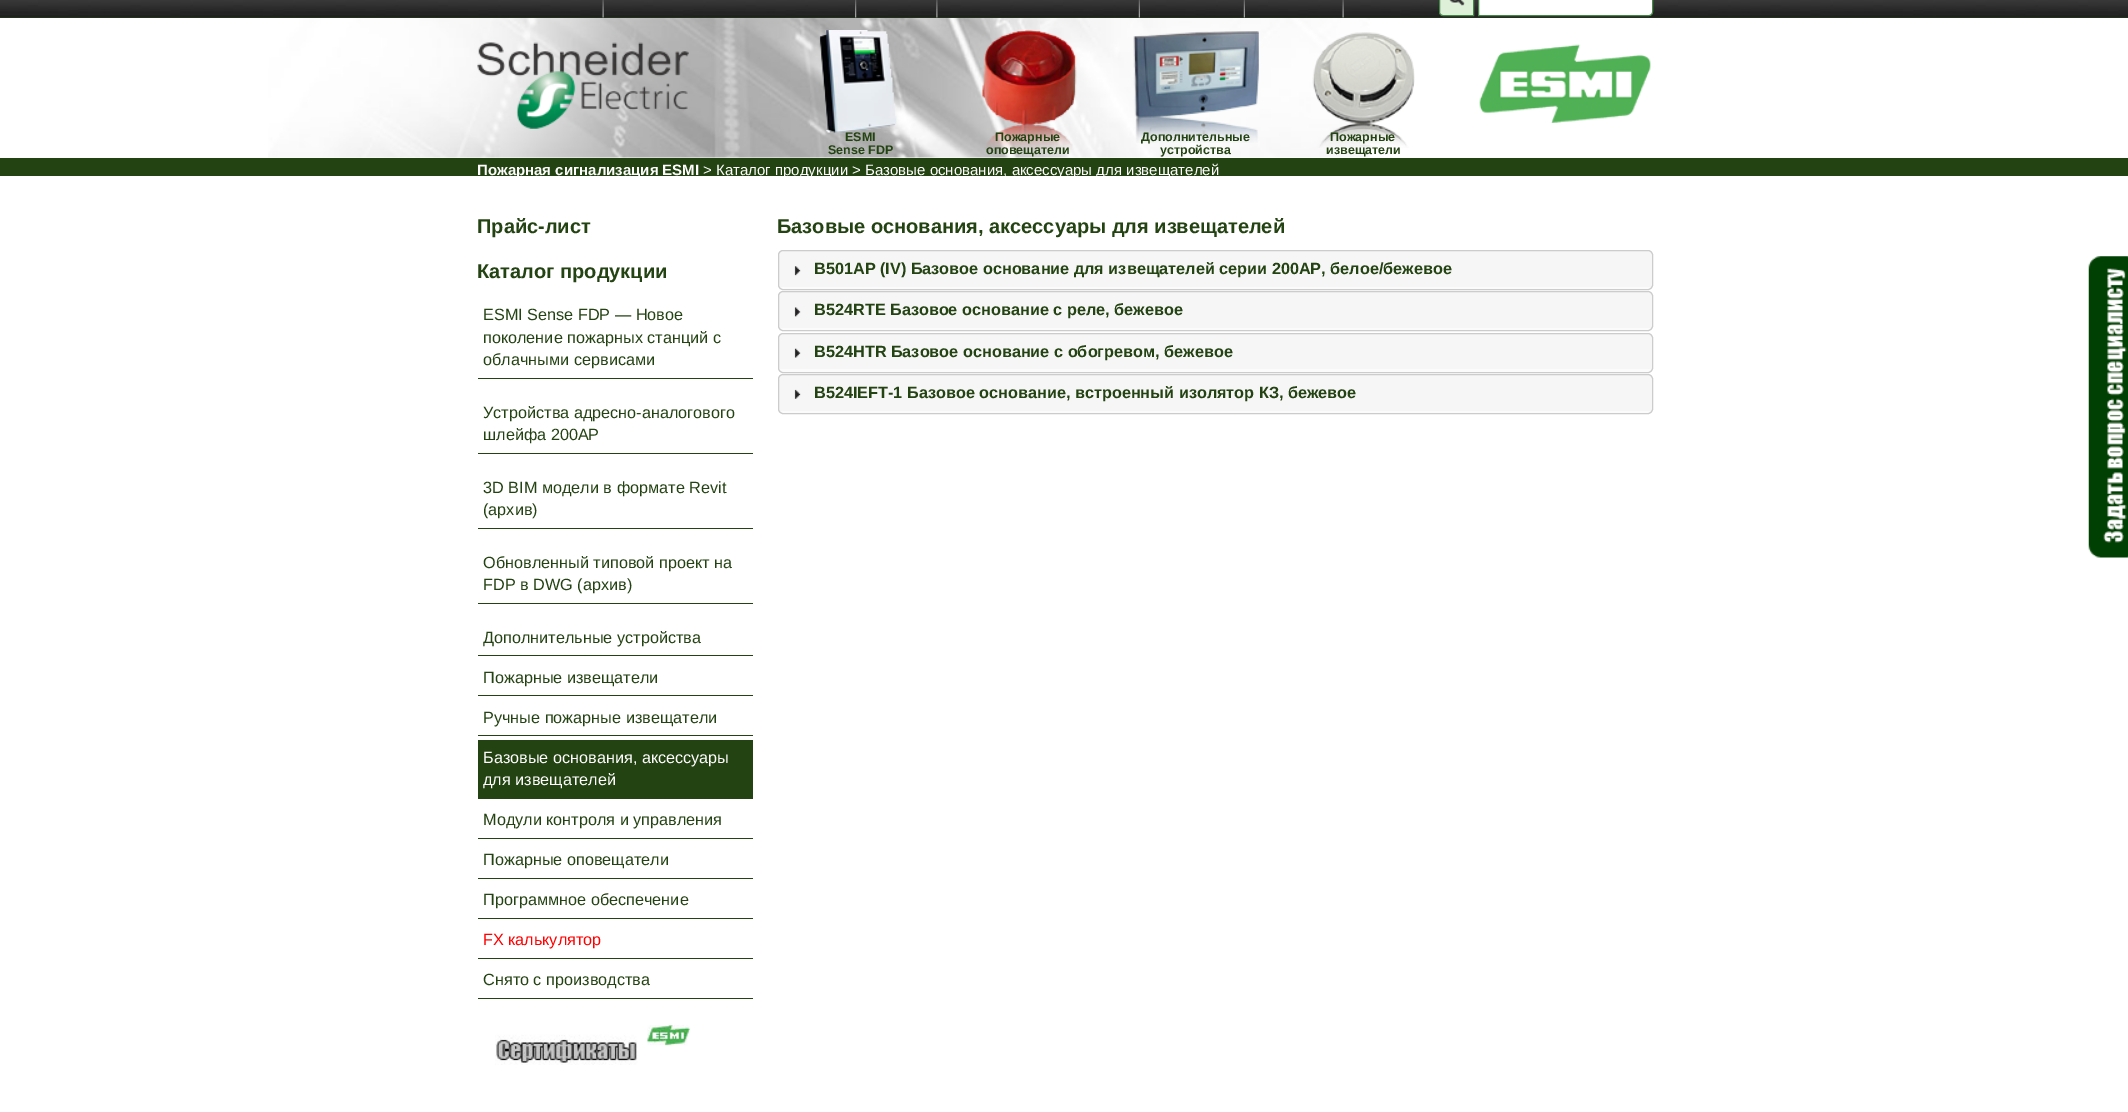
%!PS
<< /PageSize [2128 1112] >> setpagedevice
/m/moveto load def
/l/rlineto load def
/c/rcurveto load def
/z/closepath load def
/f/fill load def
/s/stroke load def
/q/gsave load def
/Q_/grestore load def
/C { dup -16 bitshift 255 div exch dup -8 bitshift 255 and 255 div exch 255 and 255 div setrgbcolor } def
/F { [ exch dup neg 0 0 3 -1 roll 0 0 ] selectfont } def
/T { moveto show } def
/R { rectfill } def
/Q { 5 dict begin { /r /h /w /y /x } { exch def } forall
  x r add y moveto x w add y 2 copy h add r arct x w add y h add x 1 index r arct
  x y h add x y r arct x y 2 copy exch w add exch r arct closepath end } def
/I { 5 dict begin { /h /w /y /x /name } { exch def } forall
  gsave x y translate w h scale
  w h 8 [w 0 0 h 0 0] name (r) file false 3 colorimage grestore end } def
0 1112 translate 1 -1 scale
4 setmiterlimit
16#FFFFFF C
0 0 2128 1112 R
16#244312 C
0 17 2128 1 R
(1.rgb) 0 0 2128 18 I
(2.rgb) 602 0 2 18 I
(3.rgb) 855 0 2 18 I
(4.rgb) 936 0 2 18 I
(5.rgb) 1138 0 2 18 I
(5.rgb) 1243 0 2 18 I
(6.rgb) 1342 0 2 18 I
16#DFF0D8 C
1443 -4.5 m 30.5 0 l 0 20 l -30.5 0 l -2 0 -3.5 -1.5 -3.5 -3.5 c 0 -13 l 0 -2 1.5 -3.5 3.5 -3.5 c z q f Q_
16#468847 C
s
(7.rgb) 1449 0 16 6 I
16#FFFFFF C
1478.5 -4.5 m 170.5 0 l 2 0 3.5 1.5 3.5 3.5 c 0 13 l 0 2 -1.5 3.5 -3.5 3.5 c -170.5 0 l z q f Q_
16#468847 C
s
(8.rgb) 268 18 1102 140 I
16#244312 C
0 158 2128 18 R
(9.rgb) 477 42 212 87 I
(10.rgb) 1479 44 172 79 I
(11.rgb) 819 30 78 104 I
/LiberationSans-Bold 12.5 F
(ESMI) 845 141 T
(Sense FDP) 828 154 T
(12.rgb) 981 30 96 120 I
(Пожарные) 995 141 T
(оповещатели) 986 154 T
(13.rgb) 1133 31 126 112 I
(Дополнительные) 1141 141 T
(устройства) 1160 154 T
(14.rgb) 1312 32 103 116 I
(Пожарные) 1330 141 T
(извещатели) 1326 154 T
/LiberationSans-Bold 15 F
16#FFFFFF C
(Пожарная сигнализация ESMI) 477 175 T
/LiberationSans-Regular 15 F
(> Каталог продукции > Базовые основания, аксессуары для извещателей) 703 175 T
/LiberationSans-Bold 20 F
16#244312 C
(Прайс-лист) 477 233 T
(Каталог продукции) 477 278 T
478 378 275 1 R
/LiberationSans-Regular 16.25 F
(ESMI Sense FDP — Новое) 483 320 T
(поколение пожарных станций с) 483 343 T
(облачными сервисами) 483 365 T
478 453 275 1 R
(Устройства адресно-аналогового) 483 418 T
(шлейфа 200AP) 483 440 T
478 528 275 1 R
(3D BIM модели в формате Revit) 483 493 T
(\(архив\)) 483 515 T
478 603 275 1 R
(Обновленный типовой проект на) 483 568 T
(FDP в DWG \(архив\)) 483 590 T
478 655 275 1 R
(Дополнительные устройства) 483 643 T
478 695 275 1 R
(Пожарные извещатели) 483 683 T
478 735 275 1 R
(Ручные пожарные извещатели) 483 723 T
478 740 275 59 R
16#FFFFFF C
(Базовые основания, аксессуары) 483 763 T
(для извещателей) 483 785 T
16#244312 C
478 838 275 1 R
(Модули контроля и управления) 483 825 T
478 878 275 1 R
(Пожарные оповещатели) 483 865 T
478 918 275 1 R
(Программное обеспечение) 483 905 T
478 958 275 1 R
16#FF0000 C
(FX калькулятор) 483 945 T
16#244312 C
478 998 275 1 R
(Снято с производства) 483 985 T
(15.rgb) 495 1025 195 40 I
/LiberationSans-Bold 20 F
(Базовые основания, аксессуары для извещателей) 777 233 T
16#F6F6F6 C
778 250 875 40 5 Q f
16#FBFBFB C
779 287 872 3 R
16#CCCCCC C
778.5 250.5 874 39 4.5 Q s
(16.rgb) 794 266 7 10 I
/LiberationSans-Bold 16.25 F
16#244312 C
(B501AP \(IV\) Базовое основание для извещателей серии 200АР, белое/бежевое) 814 274 T
16#F6F6F6 C
778 291 875 40 5 Q f
16#FBFBFB C
779 328 872 3 R
16#CCCCCC C
778.5 291.5 874 39 4.5 Q s
(17.rgb) 794 307 7 10 I
16#244312 C
(B524RTE Базовое основание с реле, бежевое) 814 315 T
16#F6F6F6 C
778 333 875 40 5 Q f
16#FBFBFB C
779 369 873 3 R
16#CCCCCC C
778.5 333.5 874 39 4.5 Q s
(18.rgb) 794 348 7 10 I
16#244312 C
(B524HTR Базовое основание с обогревом, бежевое) 814 357 T
16#F6F6F6 C
778 374 875 40 5 Q f
(19.rgb) 779 411 872 2 I
16#CCCCCC C
778.5 374.5 874 39 4.5 Q s
(20.rgb) 794 389 7 10 I
16#244312 C
(B524IEFT-1 Базовое основание, встроенный изолятор КЗ, бежевое) 814 398 T
(21.rgb) 2088 256 40 302 I
showpage
